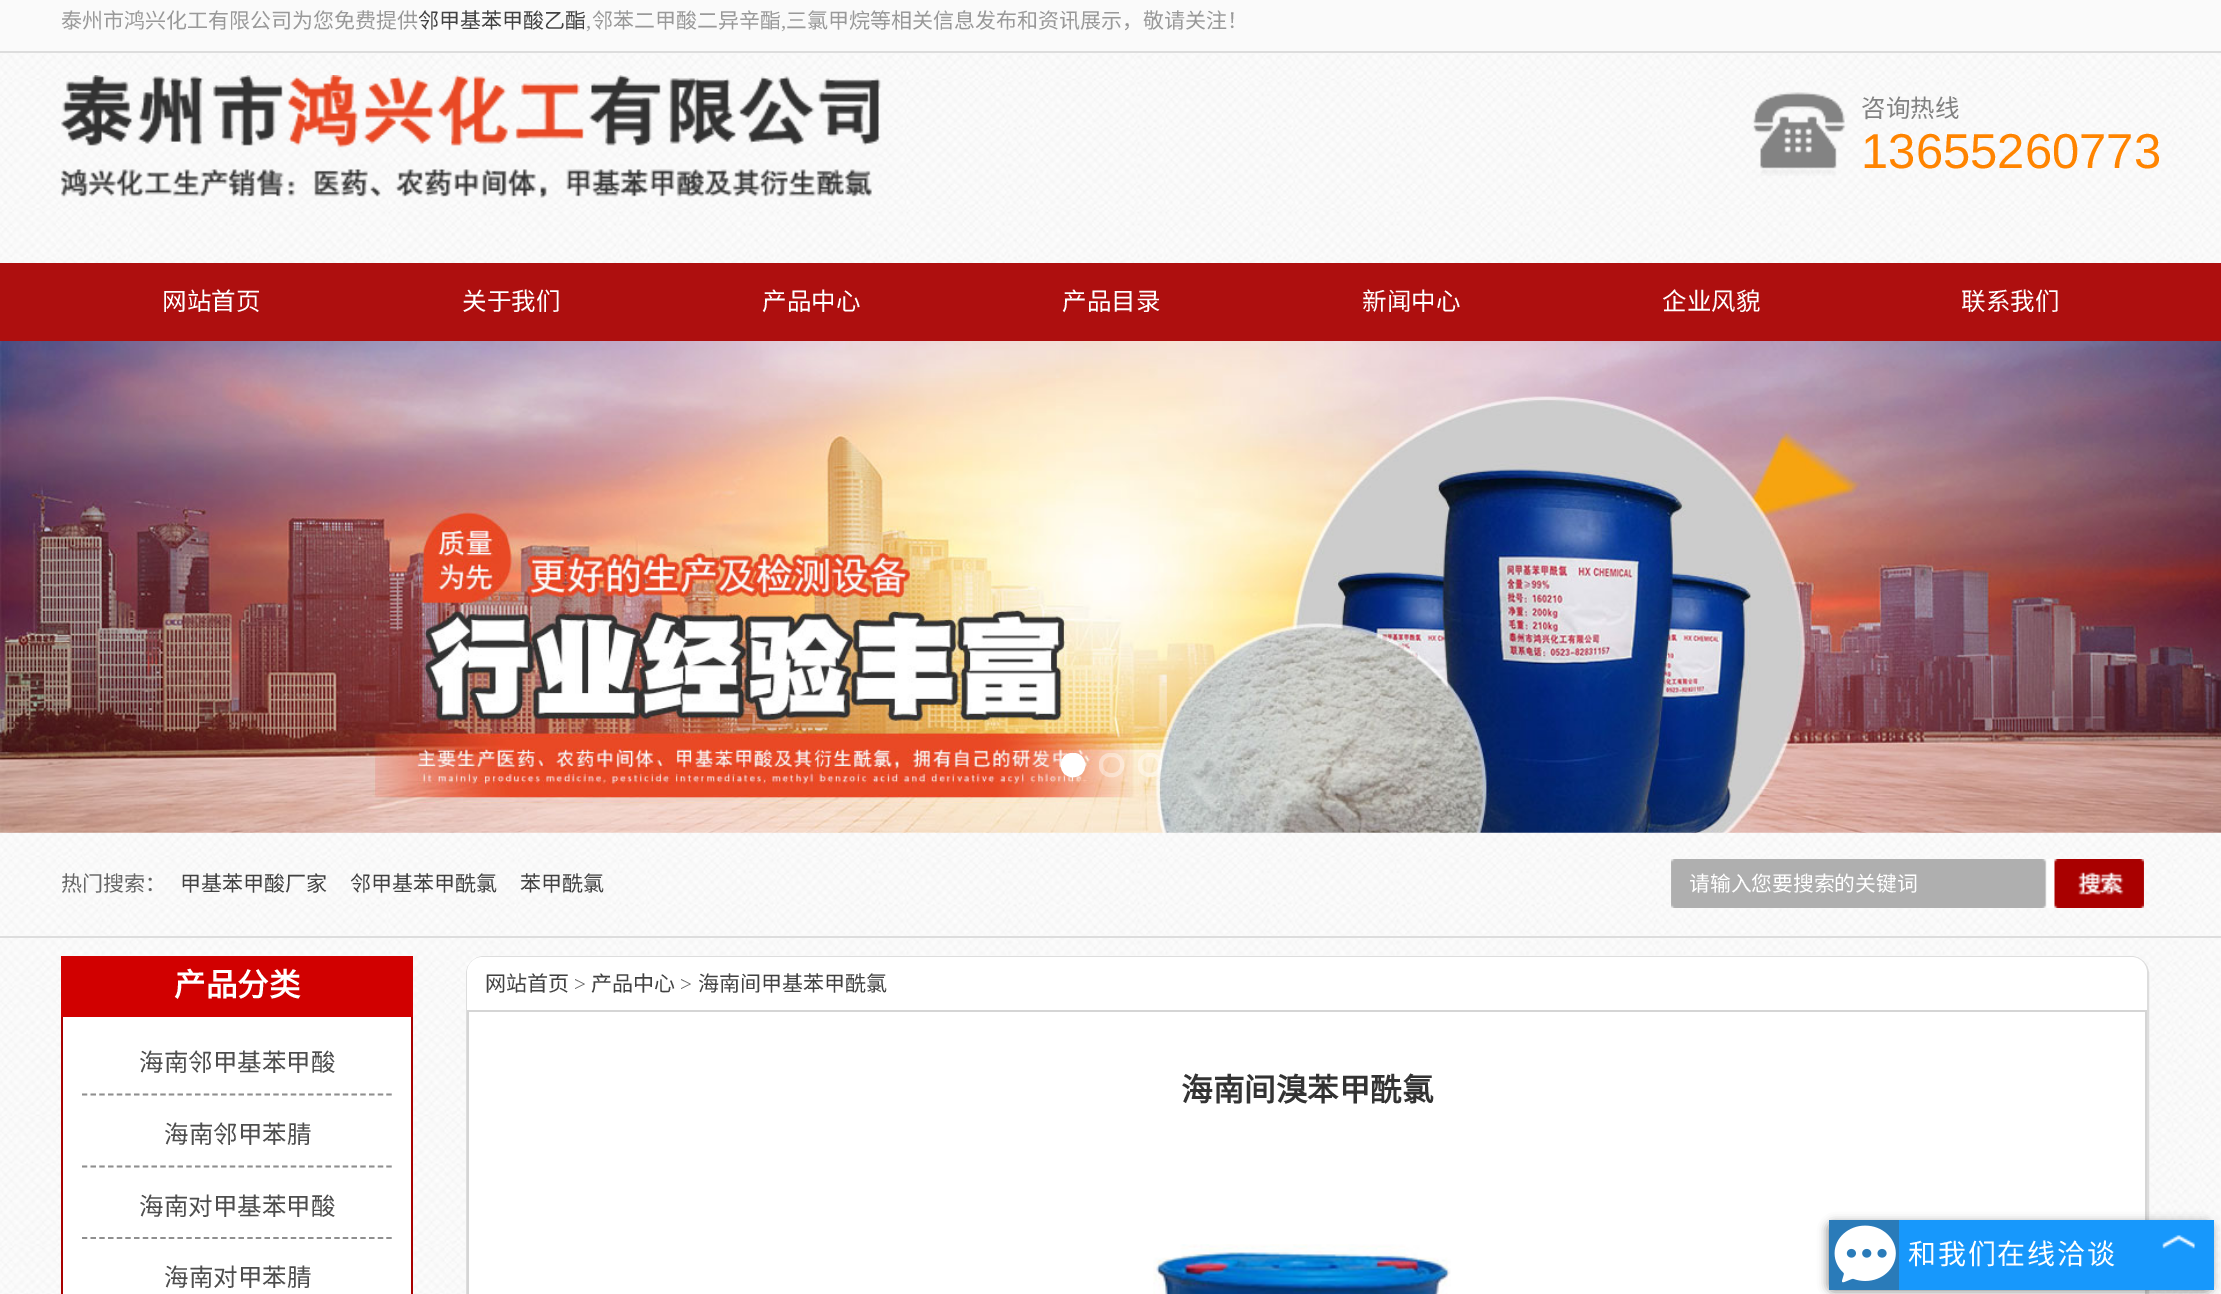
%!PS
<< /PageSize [2221 1294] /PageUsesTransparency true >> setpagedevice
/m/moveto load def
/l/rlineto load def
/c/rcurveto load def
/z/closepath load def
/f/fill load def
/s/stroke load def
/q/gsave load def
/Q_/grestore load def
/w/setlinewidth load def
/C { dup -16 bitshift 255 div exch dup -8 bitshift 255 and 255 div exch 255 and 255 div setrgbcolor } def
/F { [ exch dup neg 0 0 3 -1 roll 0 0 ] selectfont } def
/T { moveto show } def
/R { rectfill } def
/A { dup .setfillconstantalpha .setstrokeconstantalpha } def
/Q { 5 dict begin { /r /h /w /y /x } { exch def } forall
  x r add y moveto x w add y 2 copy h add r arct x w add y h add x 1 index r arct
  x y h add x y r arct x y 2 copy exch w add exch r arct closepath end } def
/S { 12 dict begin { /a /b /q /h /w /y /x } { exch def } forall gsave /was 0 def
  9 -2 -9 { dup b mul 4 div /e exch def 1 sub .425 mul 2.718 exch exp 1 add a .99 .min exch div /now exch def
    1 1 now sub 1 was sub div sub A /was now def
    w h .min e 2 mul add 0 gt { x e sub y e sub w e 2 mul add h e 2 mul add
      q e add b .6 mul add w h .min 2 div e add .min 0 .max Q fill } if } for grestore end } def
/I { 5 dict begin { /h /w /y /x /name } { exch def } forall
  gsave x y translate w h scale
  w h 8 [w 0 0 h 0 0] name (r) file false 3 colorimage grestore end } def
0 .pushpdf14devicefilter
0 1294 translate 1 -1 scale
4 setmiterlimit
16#FFFFFF C
0 0 2221 1294 R
(1.rgb) 0 53 2221 1241 I
16#FAFAFA C
0 0 2221 51 R
16#DDDDDD C
0 51 2221 2 R
/NotoSansCJKSC-Regular 21 F
16#999999 C
(泰州市鸿兴化工有限公司为您免费提供) 61 28 T
16#414141 C
(邻甲基苯甲酸乙酯) 418 28 T
/LiberationSerif-Regular 21 F
16#999999 C
(,) 586 28 T
/NotoSansCJKSC-Regular 21 F
(邻苯二甲酸二异辛酯) 592 28 T
/LiberationSerif-Regular 21 F
(,) 781 28 T
/NotoSansCJKSC-Regular 21 F
(三氯甲烷等相关信息发布和资讯展示，敬请关注！) 786 28 T
(2.rgb) 61 75 820 123 I
(3.rgb) 1753 92 92 84 I
/NotoSansCJKSC-Regular 24.5 F
16#818181 C
(咨询热线) 1861 117 T
/LiberationSans-Regular 49 F
16#FF8400 C
(13655260773) 1861 168 T
16#AE0F0F C
0 263 2221 78 R
/NotoSansCJKSC-Regular 24.5 F
16#FFFFFF C
(网站首页) 162 310 T
(关于我们) 462 310 T
(产品中心) 762 310 T
(产品目录) 1062 310 T
(新闻中心) 1362 310 T
(企业风貌) 1662 310 T
(联系我们) 1961 310 T
(4.rgb) 0 341 2221 492 I
1063 755 20 20 9 Q q f Q_
4 w
s
0.4 A
1101 755 21 20 9 Q s
1140 755 20 20 9 Q s
1 A
16#DDDDDD C
0 936 2221 2 R
/NotoSansCJKSC-Regular 21 F
16#666666 C
(热门搜索：) 61 891 T
16#414141 C
(甲基苯甲酸厂家) 180 891 T
(邻甲基苯甲酰氯) 350 891 T
(苯甲酰氯) 520 891 T
(5.rgb) 1671 859 473 49 I
(6.rgb) 1671 859 473 49 I
/NotoSansCJKSC-Regular 20.75 F
16#FFFFFF C
(请输入您要搜索的关键词) 1689 891 T
16#D10000 C
61 956 352 61 R
/NotoSansCJKSC-Bold 31.5 F
16#FFFFFF C
(产品分类) 174 996 T
63 1017 348 277 R
16#A90000 C
411 1017 2 277 R
61 1017 2 277 R
16#8F8F8F C
1.8 w
[5.25 3.45] 0 setdash
82 1094.5 m 310 0 l s
/NotoSansCJKSC-Regular 24.5 F
16#4D4D4D C
(海南邻甲基苯甲酸) 139 1071 T
16#8F8F8F C
82 1166.5 m 310 0 l s
16#4D4D4D C
(海南邻甲苯腈) 164 1143 T
16#8F8F8F C
82 1238 m 310 0 l s
16#4D4D4D C
(海南对甲基苯甲酸) 139 1215 T
(海南对甲苯腈) 164 1286 T
16#DDDDDD C
2 w
[] 0 setdash
467 957 1681 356 17 Q s
16#FFFFFF C
483 957 m 1648 0 l 9 0 16 7 16 16 c 0 37 l -1680 0 l 0 -37 l 0 -9 7 -16 16 -16 c z f
/NotoSansCJKSC-Regular 21 F
16#414141 C
(网站首页) 485 991 T
/LiberationSerif-Regular 21 F
16#666666 C
(>) 574 991 T
/NotoSansCJKSC-Regular 21 F
16#414141 C
(产品中心) 591 991 T
/LiberationSerif-Regular 21 F
16#666666 C
(>) 680 991 T
/NotoSansCJKSC-Regular 21 F
16#414141 C
(海南间甲基苯甲酰氯) 698 991 T
16#FFFFFF C
469 1012 1676 282 R
16#D5D5D5 C
469 1012 m 1676 0 l 0 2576 l 1 -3 2 -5 2 -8 c 0 -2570 l -1680 0 l 0 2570 l 0 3 1 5 2 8 c z 2131 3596 m 3 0 5 -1 8 -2 c -1664 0 l 3 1 5 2 8 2 c z eofill
/NotoSansCJKSC-Bold 31.5 F
16#333333 C
(海南间溴苯甲酰氯) 1181 1101 T
(7.rgb) 1153 1244 298 50 I
16#000000 C
1827 1222 385 70 7 4.5 .4 S
16#1798FC C
1899 1220 315 70 R
16#2A7BB9 C
1829 1220 70 70 R
(8.rgb) 1834 1225 62 58 I
/NotoSansCJKSC-Regular 28 F
16#FFFFFF C
1908 1264 m 1.75 0 (和我们在线洽谈) ashow
(9.rgb) 2162 1235 33 14 I
.poppdf14devicefilter showpage
